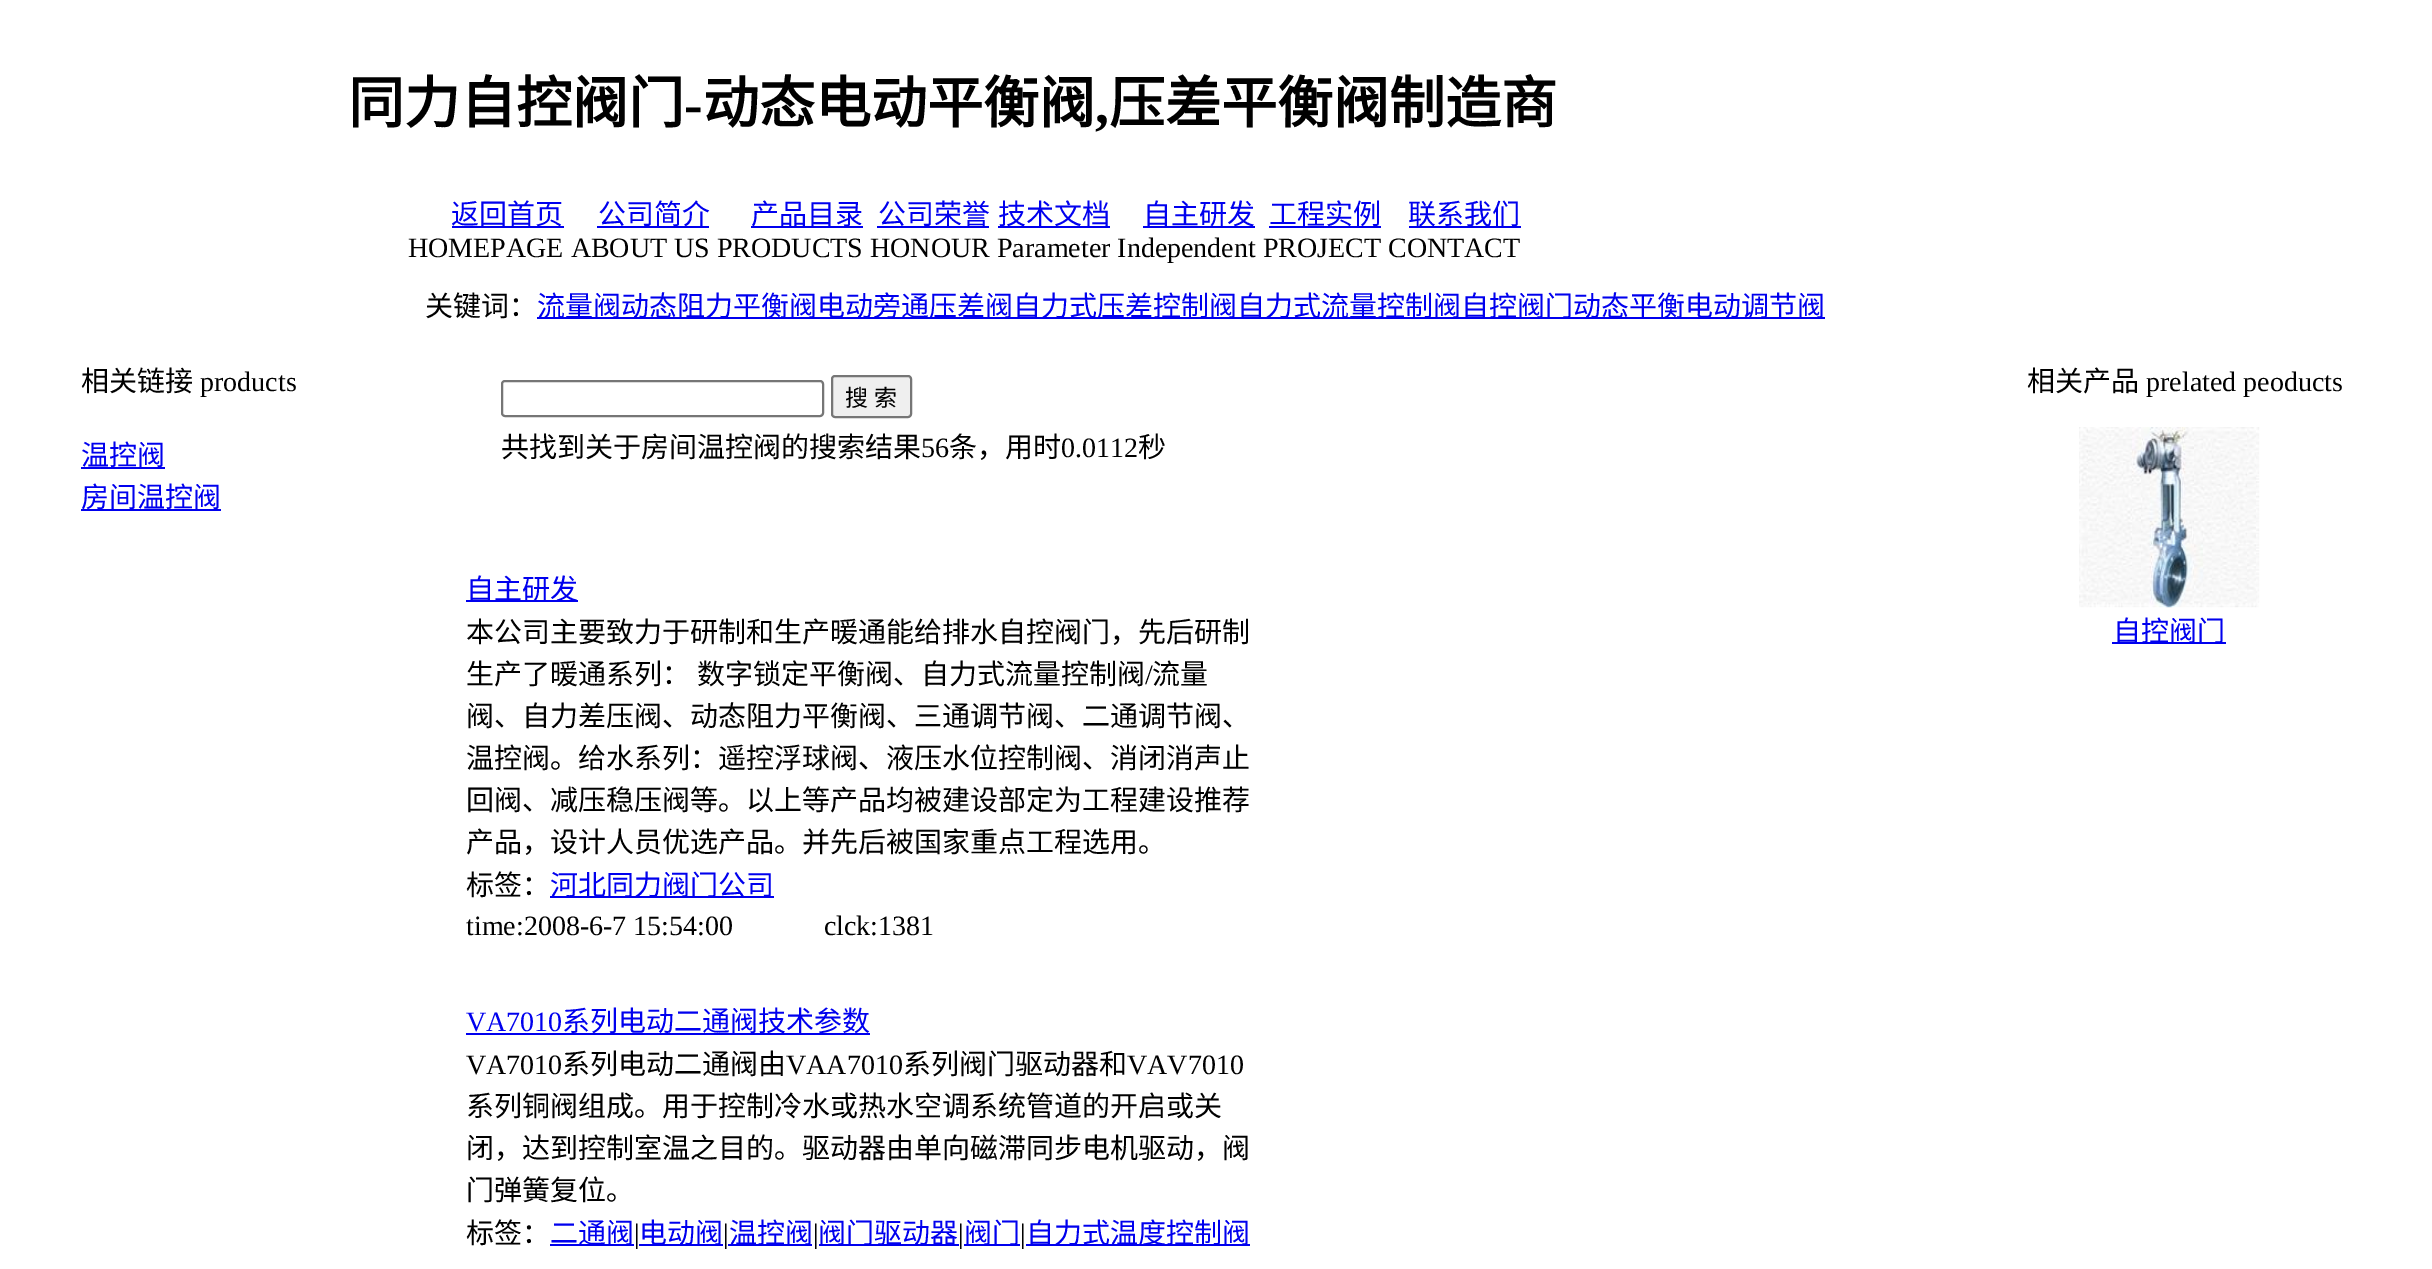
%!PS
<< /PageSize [2432 1269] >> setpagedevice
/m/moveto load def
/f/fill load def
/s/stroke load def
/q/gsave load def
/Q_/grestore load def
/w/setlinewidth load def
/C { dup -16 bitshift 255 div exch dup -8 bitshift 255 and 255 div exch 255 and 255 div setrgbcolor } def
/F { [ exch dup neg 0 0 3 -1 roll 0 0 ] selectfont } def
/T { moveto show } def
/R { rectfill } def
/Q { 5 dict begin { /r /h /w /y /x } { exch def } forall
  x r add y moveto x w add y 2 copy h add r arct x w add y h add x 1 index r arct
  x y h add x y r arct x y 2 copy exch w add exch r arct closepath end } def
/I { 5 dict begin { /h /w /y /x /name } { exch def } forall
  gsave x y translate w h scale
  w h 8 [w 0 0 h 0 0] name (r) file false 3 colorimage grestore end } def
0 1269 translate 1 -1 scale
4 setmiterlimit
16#FFFFFF C
0 0 2432 1269 R
/NotoSansCJKSC-Bold 56 F
16#000000 C
(同力自控阀门) 348 123 T
/LiberationSerif-Bold 56 F
(-) 684 123 T
/NotoSansCJKSC-Bold 56 F
(动态电动平衡阀) 703 123 T
(压差平衡阀制造商) 1109 123 T
/LiberationSerif-Bold 56 F
(,) 1095 123 T
16#0000EE C
452 226 112 2 R
/NotoSansCJKSC-Regular 28 F
(返回首页) 451 224 T
/LiberationSerif-Regular 28 F
16#000000 C
(HOMEPAGE ABOUT US PRODUCTS HONOUR Parameter Independent PROJECT CONTACT) 408 257 T
16#0000EE C
597 226 112 2 R
/NotoSansCJKSC-Regular 28 F
(公司简介) 598 224 T
751 226 112 2 R
(产品目录) 751 224 T
877 226 112 2 R
(公司荣誉) 878 224 T
998 226 112 2 R
(技术文档) 998 224 T
1143 226 112 2 R
(自主研发) 1143 224 T
1269 226 112 2 R
(工程实例) 1269 224 T
1409 226 112 2 R
(联系我们) 1408 224 T
16#000000 C
(关键词：) 425 316 T
16#0000EE C
537 317 1288 2 R
(流量阀动态阻力平衡阀电动旁通压差阀自力式压差控制阀自力式流量控制阀自控阀门动态平衡电动调节阀) 537 316 T
16#000000 C
(相关链接) 81 391 T
/LiberationSerif-Regular 28 F
(products) 200 391 T
16#0000EE C
81 467 84 2 R
/NotoSansCJKSC-Regular 28 F
(温控阀) 81 465 T
81 509 140 2 R
(房间温控阀) 81 507 T
16#767676 C
2 w
502 381 321 35 3 Q s
16#EFEFEF C
832 376 79 41 3 Q q f Q_
16#767676 C
s
/NotoSansCJKSC-Regular 23 F
16#000000 C
845 406 m 1 0 32 (搜 索) widthshow
/NotoSansCJKSC-Regular 28 F
(共找到关于房间温控阀的搜索结果) 501 457 T
/LiberationSerif-Regular 28 F
(56) 921 457 T
/NotoSansCJKSC-Regular 28 F
(条，用时) 949 457 T
/LiberationSerif-Regular 28 F
(0.0112) 1061 457 T
/NotoSansCJKSC-Regular 28 F
(秒) 1138 457 T
16#0000EE C
466 600 112 2 R
(自主研发) 466 599 T
16#000000 C
(本公司主要致力于研制和生产暖通能给排水自控阀门，先后研制) 466 642 T
466 684 m 1 0 32 (生产了暖通系列： 数字锁定平衡阀、自力式流量控制阀) widthshow
/LiberationSerif-Regular 28 F
(/) 1145 684 T
/NotoSansCJKSC-Regular 28 F
(流量) 1152 684 T
(阀、自力差压阀、动态阻力平衡阀、三通调节阀、二通调节阀、) 466 726 T
(温控阀。给水系列：遥控浮球阀、液压水位控制阀、消闭消声止) 466 768 T
(回阀、减压稳压阀等。以上等产品均被建设部定为工程建设推荐) 466 810 T
(产品，设计人员优选产品。并先后被国家重点工程选用。) 466 852 T
(标签：) 466 895 T
16#0000EE C
550 896 224 2 R
(河北同力阀门公司) 550 895 T
/LiberationSerif-Regular 28 F
16#000000 C
(time:2008-6-7 15:54:00             clck:1381) 466 935 T
16#0000EE C
(VA7010) 466 1031 T
466 1033 404 2 R
/NotoSansCJKSC-Regular 28 F
(系列电动二通阀技术参数) 562 1031 T
/LiberationSerif-Regular 28 F
16#000000 C
(VA7010) 466 1074 T
/NotoSansCJKSC-Regular 28 F
(系列电动二通阀由) 562 1074 T
/LiberationSerif-Regular 28 F
(VAA7010) 786 1074 T
/NotoSansCJKSC-Regular 28 F
(系列阀门驱动器和) 903 1074 T
/LiberationSerif-Regular 28 F
(VAV7010) 1127 1074 T
/NotoSansCJKSC-Regular 28 F
(系列铜阀组成。用于控制冷水或热水空调系统管道的开启或关) 466 1116 T
(闭，达到控制室温之目的。驱动器由单向磁滞同步电机驱动，阀) 466 1158 T
(门弹簧复位。) 466 1200 T
(标签：) 466 1243 T
16#0000EE C
550 1244 84 2 R
(二通阀) 550 1243 T
/LiberationSerif-Regular 28 F
16#000000 C
(|) 634 1243 T
16#0000EE C
639 1244 84 2 R
/NotoSansCJKSC-Regular 28 F
(电动阀) 639 1243 T
/LiberationSerif-Regular 28 F
16#000000 C
(|) 723 1243 T
16#0000EE C
728 1244 84 2 R
/NotoSansCJKSC-Regular 28 F
(温控阀) 729 1243 T
/LiberationSerif-Regular 28 F
16#000000 C
(|) 813 1243 T
16#0000EE C
819 1244 140 2 R
/NotoSansCJKSC-Regular 28 F
(阀门驱动器) 818 1243 T
/LiberationSerif-Regular 28 F
16#000000 C
(|) 958 1243 T
16#0000EE C
964 1244 56 2 R
/NotoSansCJKSC-Regular 28 F
(阀门) 964 1243 T
/LiberationSerif-Regular 28 F
16#000000 C
(|) 1020 1243 T
16#0000EE C
1026 1244 224 2 R
/NotoSansCJKSC-Regular 28 F
(自力式温度控制阀) 1026 1243 T
16#000000 C
(相关产品) 2027 391 T
/LiberationSerif-Regular 28 F
(prelated peoducts) 2146 391 T
(1.rgb) 2079 427 181 181 I
16#0000EE C
2112 642 114 2 R
/NotoSansCJKSC-Regular 28 F
(自控阀门) 2113 641 T
showpage
